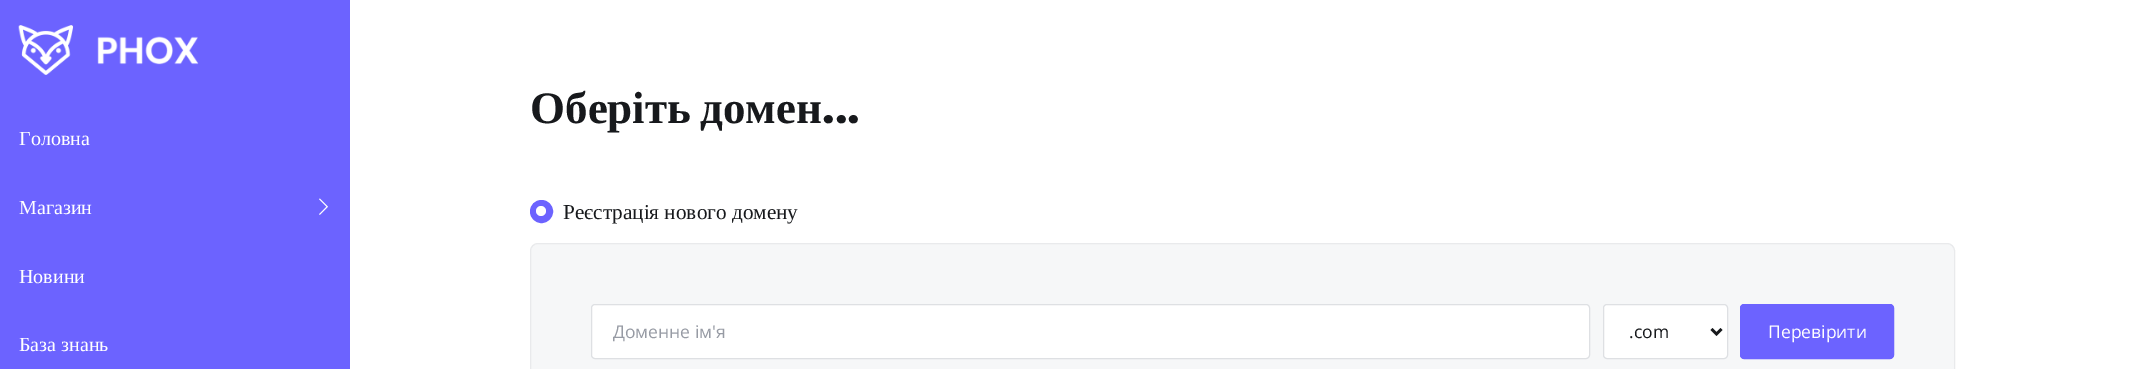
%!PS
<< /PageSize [2134 369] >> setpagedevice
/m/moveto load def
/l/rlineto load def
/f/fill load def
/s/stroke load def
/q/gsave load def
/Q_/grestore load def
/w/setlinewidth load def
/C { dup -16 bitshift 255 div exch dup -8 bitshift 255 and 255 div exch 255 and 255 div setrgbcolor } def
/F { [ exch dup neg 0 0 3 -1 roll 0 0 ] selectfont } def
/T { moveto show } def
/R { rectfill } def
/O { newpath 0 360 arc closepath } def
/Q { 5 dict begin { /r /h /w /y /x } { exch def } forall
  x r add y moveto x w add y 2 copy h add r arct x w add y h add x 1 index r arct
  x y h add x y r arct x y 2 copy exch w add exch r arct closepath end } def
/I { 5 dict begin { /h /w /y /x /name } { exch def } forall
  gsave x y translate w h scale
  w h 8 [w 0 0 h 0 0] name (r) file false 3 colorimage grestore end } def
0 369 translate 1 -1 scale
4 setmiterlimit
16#FFFFFF C
0 0 2134 369 R
16#6C63FF C
0 0 350 369 R
(1.rgb) 18 25 181 50 I
/LiberationSerif-Regular 20 F
16#FFFFFF C
(Головна) 19 145 T
(Магазин) 19 214 T
(2.rgb) 319 198 9 17 I
(Новини) 19 283 T
(База знань) 19 351 T
/LiberationSerif-Bold 45 F
16#17191C C
530 123 m -2 0 32 (Оберіть домен) widthshow
/Poppins-Bold 45 F
(...) 822 123 T
16#6C63FF C
541.5 211.5 10 O q f Q_
3 w
s
16#FFFFFF C
541 211 5 O f
/LiberationSerif-Regular 21.25 F
16#17191C C
(Реєстрація нового домену) 563 219 T
16#F6F7F8 C
530.5 243.5 1424 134 7.5 Q q f Q_
16#E9EAEC C
1 w
s
16#FFFFFF C
591.5 304.5 998 54 3.5 Q q f Q_
16#DEE0E3 C
s
q
613 320 956 24 rectclip
/OpenSans-Regular 17.5 F
16#979BA4 C
(Доменне ім'я) 613 338 T
Q_
16#FFFFFF C
1603.5 304.5 124 54 3.5 Q q f Q_
16#DEE0E3 C
s
16#17191C C
2.5 w
1711.5 329 m 5 5 l 5 -5 l s
/OpenSans-Regular 17.5 F
(.com) 1629 338 T
16#6C63FF C
1740.5 304.5 153 54 3.5 Q q f Q_
1 w
s
16#FFFFFF C
(Перевірити) 1768 338 T
showpage
